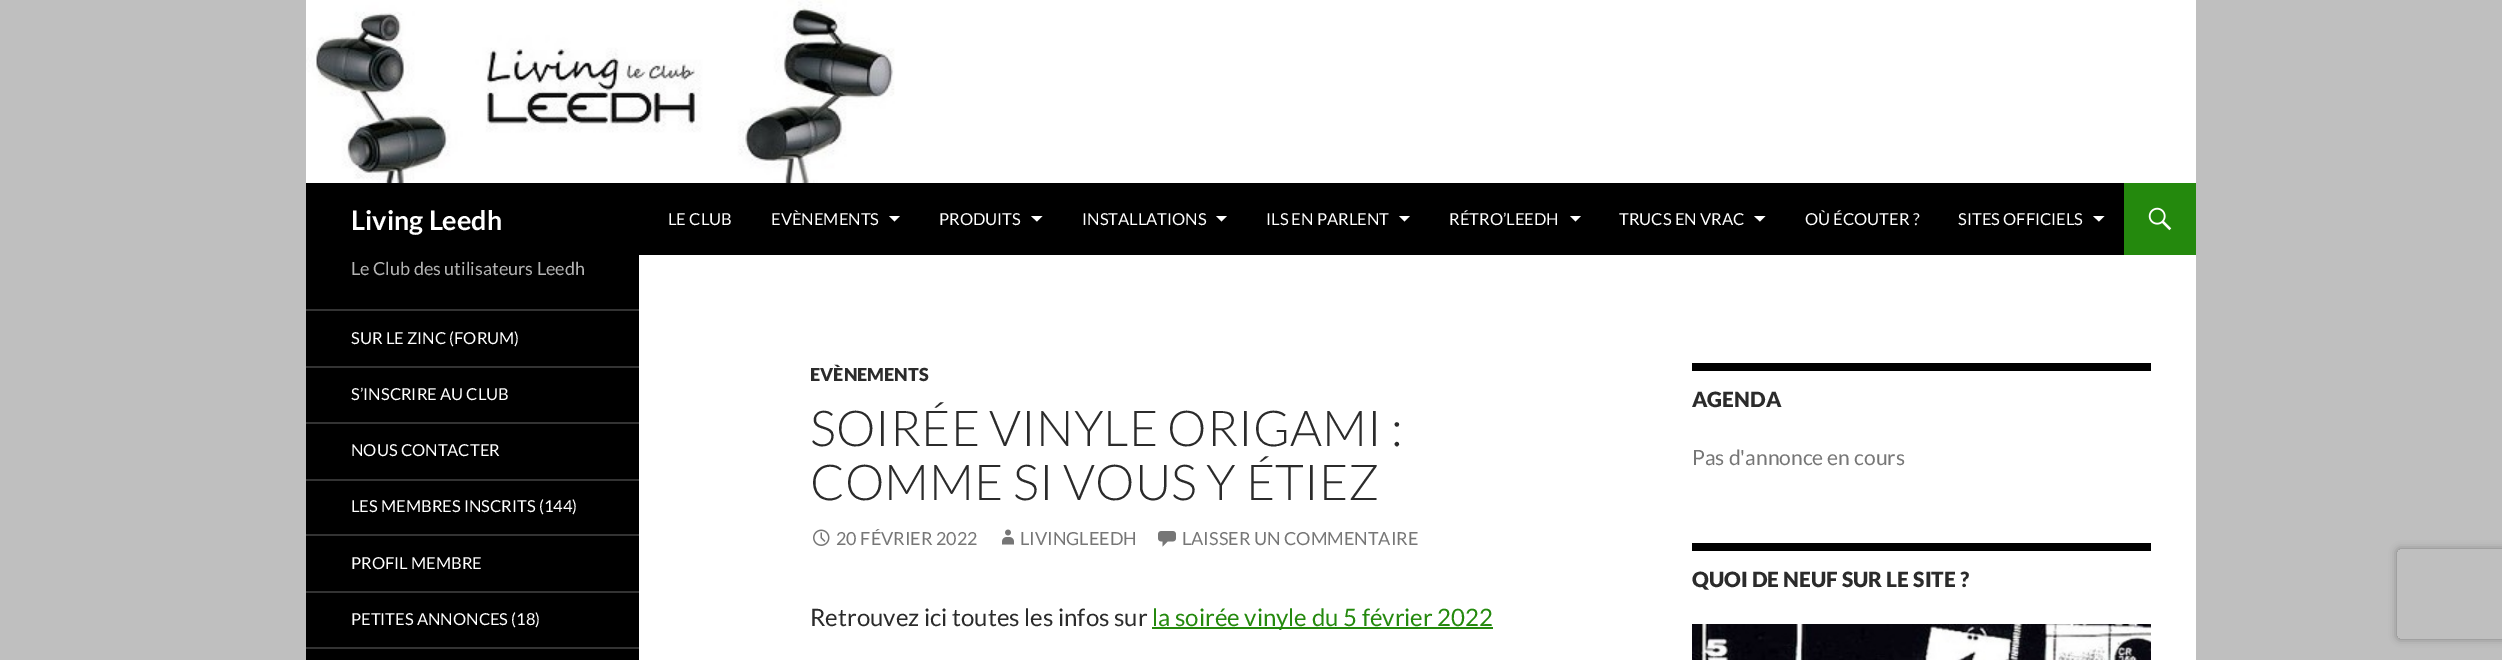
%!PS
<< /PageSize [2502 660] /PageUsesTransparency true >> setpagedevice
/m/moveto load def
/l/rlineto load def
/c/rcurveto load def
/z/closepath load def
/f/fill load def
/q/gsave load def
/Q_/grestore load def
/C { dup -16 bitshift 255 div exch dup -8 bitshift 255 and 255 div exch 255 and 255 div setrgbcolor } def
/F { [ exch dup neg 0 0 3 -1 roll 0 0 ] selectfont } def
/T { moveto show } def
/R { rectfill } def
/A { dup .setfillconstantalpha .setstrokeconstantalpha } def
/Q { 5 dict begin { /r /h /w /y /x } { exch def } forall
  x r add y moveto x w add y 2 copy h add r arct x w add y h add x 1 index r arct
  x y h add x y r arct x y 2 copy exch w add exch r arct closepath end } def
/S { 12 dict begin { /a /b /q /h /w /y /x } { exch def } forall gsave /was 0 def
  9 -2 -9 { dup b mul 4 div /e exch def 1 sub .425 mul 2.718 exch exp 1 add a .99 .min exch div /now exch def
    1 1 now sub 1 was sub div sub A /was now def
    w h .min e 2 mul add 0 gt { x e sub y e sub w e 2 mul add h e 2 mul add
      q e add b .6 mul add w h .min 2 div e add .min 0 .max Q fill } if } for grestore end } def
/I { 5 dict begin { /h /w /y /x /name } { exch def } forall
  gsave x y translate w h scale
  w h 8 [w 0 0 h 0 0] name (r) file false 3 colorimage grestore end } def
0 .pushpdf14devicefilter
0 660 translate 1 -1 scale
4 setmiterlimit
16#BFBFBF C
0 0 2502 660 R
16#FFFFFF C
639 0 1557 660 R
(1.rgb) 306 0 589 183 I
16#000000 C
306 183 1818 72 R
/Lato-Bold 27 F
16#FFFFFF C
(Living Leedh) 351 230 T
/Lato-Regular 16.5 F
(LE CLUB) 668 225 T
(EVÈNEMENTS) 771 225 T
889 216 m 5.5 5.5 l 5.5 -5.5 l z f
(PRODUITS) 939 225 T
1031 216 m 6 5.5 l 5.5 -5.5 l z f
(INSTALLATIONS) 1082 225 T
1216 216 m 5.5 5.5 l 5.5 -5.5 l z f
(ILS EN PARLENT) 1266 225 T
1399 216 m 5.5 5.5 l 5.5 -5.5 l z f
(RÉTRO’LEEDH) 1449 225 T
1570 216 m 5.5 5.5 l 5.5 -5.5 l z f
(TRUCS EN VRAC) 1619 225 T
1754 216 m 6 5.5 l 5.5 -5.5 l z f
(OÙ ÉCOUTER ?) 1805 225 T
(SITES OFFICIELS) 1958 225 T
2093 216 m 6 5.5 l 5.5 -5.5 l z f
16#24890D C
2124 183 72 72 R
(2.rgb) 2148 207 24 24 I
16#000000 C
306 255 333 405 R
/Lato-Regular 18 F
16#B3B3B3 C
(Le Club des utilisateurs Leedh) 351 275 T
16#333333 C
306 309 333 2 R
/Lato-Regular 16.5 F
16#FFFFFF C
(SUR LE ZINC \(FORUM\)) 351 344 T
16#333333 C
306 366 333 2 R
16#FFFFFF C
(S’INSCRIRE AU CLUB) 351 400 T
16#333333 C
306 422 333 2 R
16#FFFFFF C
(NOUS CONTACTER) 351 456 T
16#333333 C
306 479 333 2 R
16#FFFFFF C
(LES MEMBRES INSCRITS \(144\)) 351 512 T
16#333333 C
306 534 333 2 R
16#FFFFFF C
(PROFIL MEMBRE) 351 569 T
16#333333 C
306 591 333 2 R
16#FFFFFF C
(PETITES ANNONCES \(18\)) 351 625 T
16#333333 C
306 647 333 2 R
/Lato-Black 18 F
16#2B2B2B C
(EVÈNEMENTS) 810 381 T
/Lato-Light 49.5 F
(SOIRÉE VINYLE ORIGAMI :) 810 446 T
(COMME SI VOUS Y ÉTIEZ) 810 500 T
(3.rgb) 813 529 17 17 I
/Lato-Regular 18 F
16#767676 C
(20 FÉVRIER 2022) 836 545 T
(4.rgb) 1002 529 12 16 I
(LIVINGLEEDH) 1020 545 T
(5.rgb) 1158 531 18 16 I
(LAISSER UN COMMENTAIRE) 1182 545 T
/Lato-Regular 24 F
16#2B2B2B C
(Retrouvez ici toutes les infos sur) 810 626 T
16#24890D C
1152 627 341 2 R
(la soirée vinyle du 5 février 2022) 1152 626 T
16#000000 C
1692 363 459 8 R
/Lato-Black 21 F
16#2B2B2B C
(AGENDA) 1692 407 T
/Lato-Regular 21 F
16#767676 C
(Pas d'annonce en cours) 1692 465 T
16#000000 C
1692 543 459 8 R
/Lato-Black 21 F
16#2B2B2B C
(QUOI DE NEUF SUR LE SITE ?) 1692 587 T
(6.rgb) 1692 624 459 36 I
q
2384 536 m 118 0 l 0 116 l -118 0 l z 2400 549 m 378 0 l 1.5 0 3 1.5 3 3 c 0 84 l 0 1.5 -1.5 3 -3 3 c -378 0 l -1.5 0 -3 -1.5 -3 -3 c 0 -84 l 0 -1.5 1.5 -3 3 -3 c z eoclip newpath
16#808080 C
2397 549 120 90 3 4 1 S
Q_
.poppdf14devicefilter showpage
